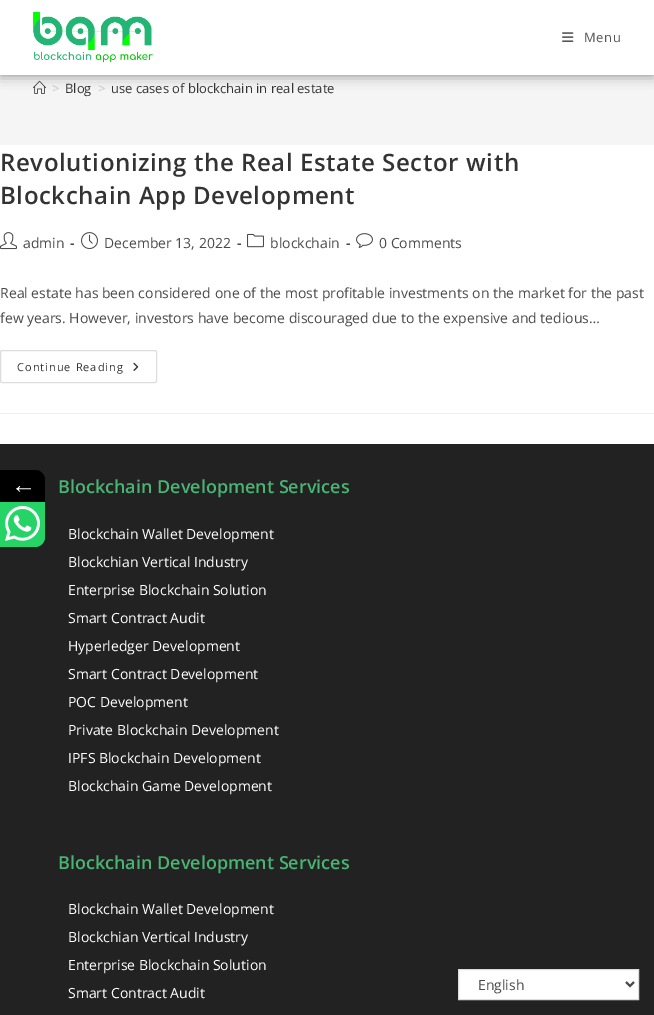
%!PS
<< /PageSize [654 1015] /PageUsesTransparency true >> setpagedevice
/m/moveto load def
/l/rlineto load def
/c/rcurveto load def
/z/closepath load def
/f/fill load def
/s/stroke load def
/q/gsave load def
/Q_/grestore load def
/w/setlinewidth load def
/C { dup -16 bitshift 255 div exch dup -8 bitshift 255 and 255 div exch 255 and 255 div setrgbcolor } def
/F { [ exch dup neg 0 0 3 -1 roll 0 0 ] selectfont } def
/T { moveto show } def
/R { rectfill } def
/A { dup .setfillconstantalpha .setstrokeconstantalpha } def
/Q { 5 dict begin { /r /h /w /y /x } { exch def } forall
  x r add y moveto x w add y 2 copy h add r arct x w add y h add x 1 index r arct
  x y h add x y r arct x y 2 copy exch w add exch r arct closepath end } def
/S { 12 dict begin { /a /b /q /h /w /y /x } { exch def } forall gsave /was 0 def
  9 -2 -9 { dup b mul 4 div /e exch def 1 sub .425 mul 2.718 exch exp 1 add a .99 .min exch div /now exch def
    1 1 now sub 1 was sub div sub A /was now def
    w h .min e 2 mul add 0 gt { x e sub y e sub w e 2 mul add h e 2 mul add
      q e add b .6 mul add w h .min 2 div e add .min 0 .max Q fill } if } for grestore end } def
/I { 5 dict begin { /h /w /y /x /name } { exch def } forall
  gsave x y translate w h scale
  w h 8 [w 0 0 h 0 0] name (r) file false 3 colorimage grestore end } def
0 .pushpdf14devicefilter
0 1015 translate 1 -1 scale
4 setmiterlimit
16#FFFFFF C
0 0 654 1015 R
16#F5F5F5 C
0 75 654 70 R
(3.rgb) 33 80 13 14 I
16#808080 C
0 0 654 75 0 6.5 1 S
16#FFFFFF C
0 0 654 75 R
(1.rgb) 32 11 121 52 I
(2.rgb) 562 32 12 10 I
/OpenSans-Regular 13 F
16#555555 C
584 42 m .6 0 (Menu) ashow
16#C6C6C6 C
(>) 52 93 T
16#333333 C
(Blog) 65 93 T
16#C6C6C6 C
(>) 98 93 T
16#333333 C
(use cases of blockchain in real estate) 111 93 T
16#F1F1F1 C
0 413 654 1 R
/OpenSans-SemiBold 24 F
16#333333 C
0 171 m .6 0 (Revolutionizing the Real Estate Sector with) ashow
0 204 m .6 0 (Blockchain App Development) ashow
(4.rgb) 0 232 17 18 I
/OpenSans-Regular 14 F
16#4A4A4A C
(admin) 23 248 T
/OpenSans-Bold 14 F
(-) 70 248 T
(5.rgb) 81 232 17 18 I
/OpenSans-Regular 14 F
(December 13, 2022) 104 248 T
/OpenSans-Bold 14 F
(-) 237 248 T
(6.rgb) 247 233 17 15 I
/OpenSans-Regular 14 F
(blockchain) 270 248 T
/OpenSans-Bold 14 F
(-) 346 248 T
(7.rgb) 356 233 17 15 I
/OpenSans-Regular 14 F
(0 Comments) 379 248 T
(Real estate has been considered one of the most profitable investments on the market for the past) 0 298 T
(few years. However, investors have become discouraged due to the expensive and tedious…) 0 323 T
16#DDDDDD C
.5 350.5 156 32 1.5 Q s
/OpenSans-Regular 11 F
16#333333 C
17 371 m 1 0 (Continue Reading) ashow
(8.rgb) 133 362 6 9 I
16#222222 C
0 444 654 571 R
/OpenSans-SemiBold 18 F
16#48B573 C
(Blockchain Development Services) 58 493 T
/OpenSans-Regular 14 F
16#FFFFFF C
(Blockchain Wallet Development) 68 539 T
(Blockchian Vertical Industry) 68 567 T
(Enterprise Blockchain Solution) 68 595 T
(Smart Contract Audit) 68 623 T
(Hyperledger Development) 68 651 T
(Smart Contract Development) 68 679 T
(POC Development) 68 707 T
(Private Blockchain Development) 68 735 T
(IPFS Blockchain Development) 68 763 T
(Blockchain Game Development) 68 791 T
/OpenSans-SemiBold 18 F
16#48B573 C
(Blockchain Development Services) 58 869 T
/OpenSans-Regular 14 F
16#FFFFFF C
(Blockchain Wallet Development) 68 914 T
(Blockchian Vertical Industry) 68 942 T
(Enterprise Blockchain Solution) 68 970 T
(Smart Contract Audit) 68 998 T
16#000000 C
0 470 m 35 0 l 5.5 0 10 4.5 10 10 c 0 22 l -45 0 l z f
/LiberationSerif-Regular 25 F
16#FFFFFF C
(←) 11 493 T
16#26D367 C
0 502 m 45 0 l 0 35 l 0 5.5 -4.5 10 -10 10 c -35 0 l z f
(9.rgb) 5 506 35 35 I
16#FFFFFF C
458.5 969.5 m 180 0 l 0 30 l -180 0 l z q f Q_
16#DDDDDD C
s
16#4A4A4A C
2 w
626 982 m 4 4 l 4 -4 l s
/OpenSans-Regular 14 F
(English) 478 990 T
.poppdf14devicefilter showpage
